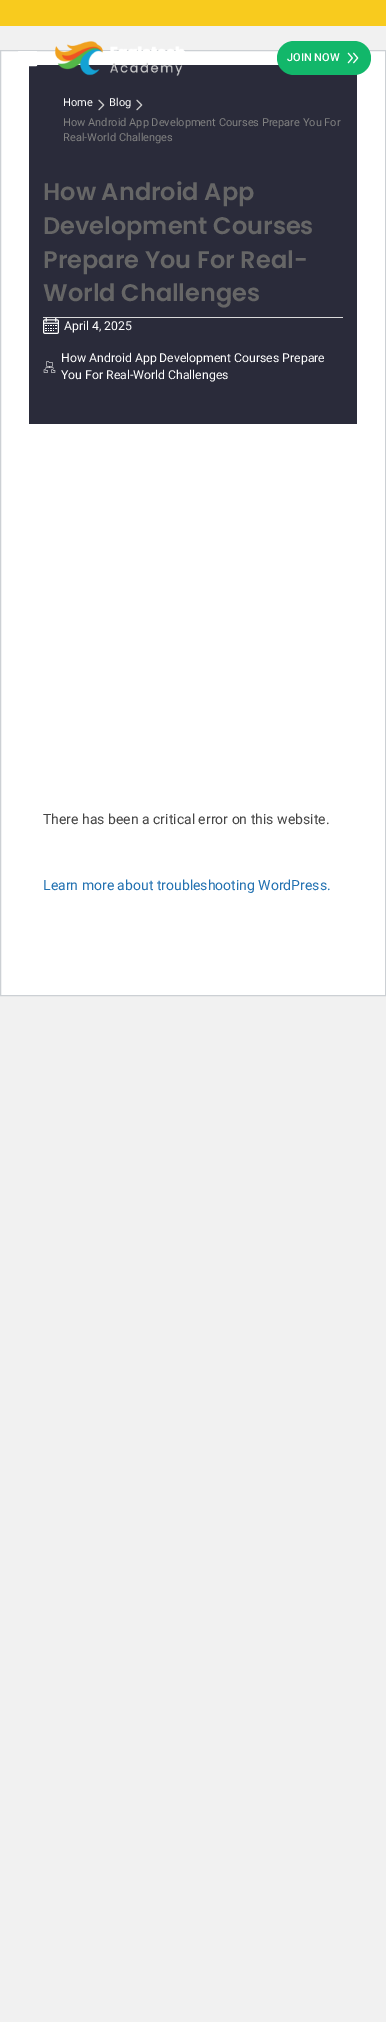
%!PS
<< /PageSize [386 2022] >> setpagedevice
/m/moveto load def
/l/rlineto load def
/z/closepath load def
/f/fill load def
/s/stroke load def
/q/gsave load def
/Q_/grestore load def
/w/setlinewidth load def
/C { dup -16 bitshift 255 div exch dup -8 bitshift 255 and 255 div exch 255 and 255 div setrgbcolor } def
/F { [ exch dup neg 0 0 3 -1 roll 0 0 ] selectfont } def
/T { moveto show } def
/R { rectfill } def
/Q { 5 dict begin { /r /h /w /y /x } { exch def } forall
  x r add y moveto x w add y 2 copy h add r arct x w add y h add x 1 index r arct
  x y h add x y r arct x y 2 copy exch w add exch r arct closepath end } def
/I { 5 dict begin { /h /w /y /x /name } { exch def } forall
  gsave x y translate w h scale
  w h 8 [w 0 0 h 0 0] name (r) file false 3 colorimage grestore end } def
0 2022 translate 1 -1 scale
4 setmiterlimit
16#F1F1F1 C
0 0 386 2022 R
16#FFFFFF C
.5 50.5 m 385 0 l 0 945 l -385 0 l z q f Q_
16#CCD0D4 C
s
16#F8CB1E C
0 0 386 26 R
16#2A2B3A C
29 65 328 359 R
16#FFFFFF C
2.1 w
1 setlinecap
1 setlinejoin
19 52 m 17 0 l 19 65 m 17 0 l s
(1.rgb) 55 41 130 35 I
16#12B76A C
277 41 94 34 17 Q f
/Roboto-Medium 11 F
16#FFFFFF C
(JOIN NOW) 287 61 T
(2.rgb) 347 52 12 12 I
/Roboto-Regular 11 F
(Home) 63 106 T
(3.rgb) 98 99 7 12 I
(Blog) 109 106 T
(3.rgb) 136 99 7 12 I
16#818181 C
(How Android App Development Courses Prepare You For) 63 126 T
(Real-World Challenges) 63 141 T
16#DADADA C
43 317 300 1 R
/Poppins-SemiBold 24 F
16#666666 C
(How Android App) 43 200 T
(Development Courses) 43 234 T
(Prepare You For Real-) 43 268 T
(World Challenges) 43 301 T
(4.rgb) 43 318 16 16 I
/Roboto-Regular 12.25 F
16#FFFFFF C
(April 4, 2025) 64 330 T
(How Android App Development Courses Prepare) 61 362 T
(5.rgb) 43 361 13 12 I
(You For Real-World Challenges) 61 379 T
/Roboto-Regular 14 F
16#444444 C
(There has been a critical error on this website.) 43 824 T
16#2271B1 C
(Learn more about troubleshooting WordPress.) 43 890 T
showpage
